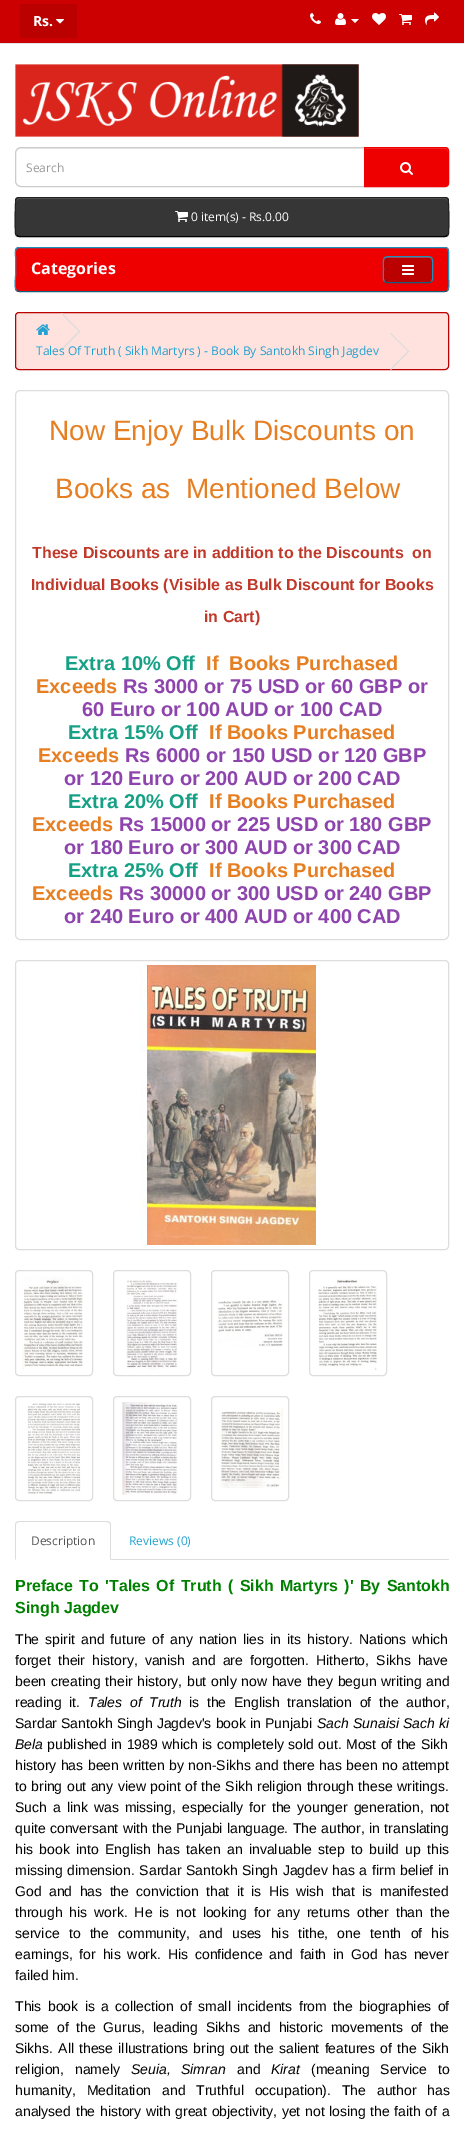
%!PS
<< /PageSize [464 2132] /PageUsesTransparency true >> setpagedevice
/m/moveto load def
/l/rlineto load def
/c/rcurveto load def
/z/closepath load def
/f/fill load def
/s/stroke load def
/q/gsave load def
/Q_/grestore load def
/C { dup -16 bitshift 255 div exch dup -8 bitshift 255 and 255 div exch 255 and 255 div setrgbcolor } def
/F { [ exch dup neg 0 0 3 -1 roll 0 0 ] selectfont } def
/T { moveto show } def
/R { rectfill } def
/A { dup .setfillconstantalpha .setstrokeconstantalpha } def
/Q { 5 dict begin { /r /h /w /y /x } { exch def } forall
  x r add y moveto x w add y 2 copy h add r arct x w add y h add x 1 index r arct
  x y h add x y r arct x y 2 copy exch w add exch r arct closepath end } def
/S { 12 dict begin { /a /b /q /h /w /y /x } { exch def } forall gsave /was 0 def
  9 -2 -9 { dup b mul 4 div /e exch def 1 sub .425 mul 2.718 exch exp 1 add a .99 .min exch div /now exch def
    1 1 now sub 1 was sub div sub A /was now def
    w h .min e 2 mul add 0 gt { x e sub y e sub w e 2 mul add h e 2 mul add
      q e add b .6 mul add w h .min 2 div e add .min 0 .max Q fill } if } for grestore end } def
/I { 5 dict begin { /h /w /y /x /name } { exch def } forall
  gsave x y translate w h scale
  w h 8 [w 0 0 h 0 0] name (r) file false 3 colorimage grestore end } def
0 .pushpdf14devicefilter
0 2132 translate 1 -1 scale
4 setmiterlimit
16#FFFFFF C
0 0 464 2132 R
16#CC0000 C
0 0 464 43 R
16#E2E2E2 C
0 43 464 1 R
16#BB0000 C
20 4 57 34 R
/OpenSans-Bold 14 F
16#FFFFFF C
(Rs.) 33 26 T
(1.rgb) 56 19 8 5 I
(2.rgb) 310 13 11 11 I
(3.rgb) 335 13 11 12 I
351 19 m 8 0 l -4 4 l z f
(4.rgb) 372 13 14 12 I
(5.rgb) 399 14 13 11 I
(6.rgb) 425 12 14 13 I
(7.rgb) 15 64 344 73 I
16#ECECEC C
21 149 m 343 0 l 0 -1 l -343 0 l -3 0 -5 2 -5 5 c 0 1 l 0 -3 2 -5 5 -5 c z f
16#CCCCCC C
21 147.5 m 343.5 0 l 0 39 l -343.5 0 l -3 0 -5.5 -2.5 -5.5 -5.5 c 0 -28 l 0 -3 2.5 -5.5 5.5 -5.5 c z s
/OpenSans-Regular 12 F
16#999999 C
(Search) 26 172 T
16#000000 C
364 148 85 40 4 1 .05 S
16#EF0000 C
364 147 m 81 0 l 2 0 4 2 4 4 c 0 32 l 0 2 -2 4 -4 4 c -81 0 l z f
16#F23333 C
365 149 m 80 0 l 2 0 3 1 3 3 c 0 -1 l 0 -2 -1 -3 -3 -3 c -80 0 l z f
16#EF0000 C
364.5 147.5 m 80.5 0 l 2 0 3.5 1.5 3.5 3.5 c 0 32 l 0 2 -1.5 3.5 -3.5 3.5 c -80.5 0 l z s
(8.rgb) 400 162 13 13 I
16#000000 C
15 198 434 40 4 1 .05 S
16#363636 C
15 197 434 40 4 Q f
16#5E5E5E C
19 199 m 426 0 l 2 0 3 1 3 3 c 0 -2 -1 -4 -3 -4 c -426 0 l -2 0 -3 2 -3 4 c 0 -2 1 -3 3 -3 c z f
16#000000 C
447.5 235.5 m -2.5 1 l -426 0 l -2.5 -1 l s
16#222222 C
16.5 235.5 m -1 -2 l -.5 -2.5 -.5 -33 .5 -34.5 c .5 -1 2 -1.5 3 -1.5 c 426 0 l 1 0 2.5 .5 3 1.5 c 1 1.5 1 32 .5 34.5 c -1 2 l s
(9.rgb) 175 211 13 11 I
16#FFFFFF C
(0 item\(s\) - Rs.0.00) 191 221 T
16#EF0000 C
15 247 434 45 4 Q f
16#145E7A C
447.5 290.5 m -2.5 1 l -426 0 l -2.5 -1 l s
16#1F90BB C
16.5 290.5 m -2.5 -2.5 -1 -12 -1 -15 c 0 -18.5 l 0 -2.5 -1.5 -9.5 3.5 -9.5 c 426 0 l 5 0 3.5 7 3.5 9.5 c 0 18.5 l 0 3 1.5 12.5 -1 15 c s
/OpenSans-Bold 16 F
16#FFFFFF C
(Categories) 31 274 T
16#000000 C
383 257 50 27 4 1 .05 S
16#BB0000 C
383 256 50 27 4 Q f
16#C93333 C
387 258 m 42 0 l 2 0 3 1 3 3 c 0 -6 -6 -4 -10 -4 c -28 0 l -4 0 -10 -2 -10 4 c 0 -2 1 -3 3 -3 c z f
16#145E7A C
431.5 281.5 m -.5 .5 -1.5 1 -2.5 1 c -42 0 l -1 0 -2 -.5 -2.5 -1 c s
16#1F90BB C
384.5 281.5 m -2 -2 -1 -9.5 -1 -12 c 0 -13 -2 -13 10.5 -13 c 28 0 l 12.5 0 10.5 0 10.5 13 c 0 2.5 1 10 -1 12 c s
(10.rgb) 402 265 12 10 I
16#FFE2DD C
15.5 312.5 433 57 3.5 Q q f Q_
16#BB0000 C
s
(11.rgb) 36 324 14 11 I
16#DDDDDD C
61 313.5 m 1 -.5 l 18.5 18.5 l -1 .5 l z f
61 349 m 18.5 -18.5 l 1 1 l -18.5 18.5 l z f
/OpenSans-Regular 12 F
16#23A1D1 C
(Tales Of Truth \( Sikh Martyrs \) - Book By Santokh Singh Jagdev) 36 355 T
16#DDDDDD C
390 333.5 m 1 -.5 l 18.5 18.5 l -1 .5 l z f
390 369 m 18.5 -18.5 l 1 1 l -18.5 18.5 l z f
15.5 390.5 433 549 4.5 Q s
/LiberationSans-Regular 28 F
16#E67E22 C
(Now Enjoy Bulk Discounts on) 49 440 T
(Books as  Mentioned Below) 55 498 T
/LiberationSans-Bold 16 F
16#C0392B C
(These Discounts are in addition to the Discounts  on) 32 558 T
(Individual Books \(Visible as Bulk Discount for Books) 31 590 T
(in Cart\)) 204 622 T
/LiberationSans-Bold 20 F
16#16A085 C
(Extra 10% Off) 65 670 T
16#E67E22 C
(If  Books Purchased) 206 670 T
(Exceeds) 36 693 T
16#8E44AD C
(Rs 3000 or 75 USD or 60 GBP or) 123 693 T
(60 Euro or 100 AUD or 100 CAD) 82 716 T
16#16A085 C
(Extra 15% Off) 68 739 T
16#E67E22 C
(If Books Purchased) 209 739 T
(Exceeds) 38 762 T
16#8E44AD C
(Rs 6000 or 150 USD or 120 GBP) 125 762 T
(or 120 Euro or 200 AUD or 200 CAD) 64 785 T
16#16A085 C
(Extra 20% Off) 68 808 T
16#E67E22 C
(If Books Purchased) 209 808 T
(Exceeds) 32 831 T
16#8E44AD C
(Rs 15000 or 225 USD or 180 GBP) 119 831 T
(or 180 Euro or 300 AUD or 300 CAD) 64 854 T
16#16A085 C
(Extra 25% Off) 68 877 T
16#E67E22 C
(If Books Purchased) 209 877 T
(Exceeds) 32 900 T
16#8E44AD C
(Rs 30000 or 300 USD or 240 GBP) 119 900 T
(or 240 Euro or 400 AUD or 400 CAD) 64 923 T
16#DDDDDD C
15.5 960.5 433 289 3.5 Q s
(12.rgb) 140 965 176 280 I
15.5 1270.5 77 105 3.5 Q s
(13.rgb) 22 1276 61 94 I
113.5 1270.5 77 105 3.5 Q s
(14.rgb) 126 1280 52 90 I
211.5 1270.5 77 105 3.5 Q s
(15.rgb) 217 1300 66 47 I
309.5 1270.5 77 105 3.5 Q s
(16.rgb) 318 1279 59 91 I
15.5 1396.5 77 104 3.5 Q s
(17.rgb) 27 1403 54 91 I
113.5 1396.5 77 104 3.5 Q s
(18.rgb) 122 1402 56 93 I
211.5 1396.5 77 104 3.5 Q s
(19.rgb) 220 1408 63 80 I
111 1559 338 1 R
19 1521 m -3 1 l 1 1 l 2 -1 l 88 0 l 2 1 l 1 -1 l -3 -1 l z f
111 1560 m 0 -35 l 0 -1 -.5 -2 -1 -3 c -1 1 l 1 0 1 1 1 2 c 0 34 l z f
15 1560 m 1 -1 l 0 -34 l 0 -1 0 -2 1 -2 c -1 -1 l -.5 1 -1 2 -1 3 c z f
/OpenSans-Regular 12 F
16#555555 C
(Description) 31 1545 T
16#23A1D1 C
(Reviews \(0\)) 129 1545 T
/LiberationSans-Bold 16 F
16#008000 C
15 1591 m 2 0 32 (Preface To 'Tales Of Truth \( Sikh Martyrs \)' By Santokh) widthshow
(Singh Jagdev) 15 1613 T
/LiberationSans-Regular 14 F
16#000000 C
15 1644 m 2.25 0 32 (The spirit and future of any nation lies in its history. Nations which) widthshow
15 1665 m 3.25 0 32 (forget their history, vanish and are forgotten. Hitherto, Sikhs have) widthshow
15 1686 m .75 0 32 (been creating their history, but only now have they begun writing and) widthshow
15 1707 m 3.75 0 32 (reading it.) widthshow
/LiberationSans-Italic 14 F
88 1707 m 3.75 0 32 (Tales of Truth) widthshow
/LiberationSans-Regular 14 F
189 1707 m 3.75 0 32 (is the English translation of the author,) widthshow
15 1728 m .25 0 32 (Sardar Santokh Singh Jagdev's book in Punjabi) widthshow
/LiberationSans-Italic 14 F
317 1728 m .25 0 32 (Sach Sunaisi Sach ki) widthshow
(Bela) 15 1749 T
/LiberationSans-Regular 14 F
47 1749 m .5 0 32 (published in 1989 which is completely sold out. Most of the Sikh) widthshow
15 1770 m .6 0 32 (history has been written by non-Sikhs and there has been no attempt) widthshow
15 1791 m .6 0 32 (to bring out any view point of the Sikh religion through these writings.) widthshow
15 1812 m 2.1 0 32 (Such a link was missing, especially for the younger generation, not) widthshow
15 1833 m .5 0 32 (quite conversant with the Punjabi language. The author, in translating) widthshow
15 1854 m 2.5 0 32 (his book into English has taken an invaluable step to build up this) widthshow
15 1875 m .75 0 32 (missing dimension. Sardar Santokh Singh Jagdev has a firm belief in) widthshow
15 1896 m 3.5 0 32 (God and has the conviction that it is His wish that is manifested) widthshow
15 1917 m 3 0 32 (through his work. He is not looking for any returns other than the) widthshow
15 1938 m 5.4 0 32 (service to the community, and uses his tithe, one tenth of his) widthshow
15 1959 m 3 0 32 (earnings, for his work. His confidence and faith in God has never) widthshow
(failed him.) 15 1980 T
15 2011 m 2.5 0 32 (This book is a collection of small incidents from the biographies of) widthshow
15 2032 m 3.75 0 32 (some of the Gurus, leading Sikhs and historic movements of the) widthshow
15 2053 m 1.25 0 32 (Sikhs. All these illustrations bring out the salient features of the Sikh) widthshow
15 2074 m 7 0 32 (religion, namely) widthshow
/LiberationSans-Italic 14 F
(Seuia,) 131 2074 T
(Simran) 181 2074 T
/LiberationSans-Regular 14 F
(and) 237 2074 T
/LiberationSans-Italic 14 F
(Kirat) 271 2074 T
/LiberationSans-Regular 14 F
311 2074 m 7 0 32 (\(meaning Service to) widthshow
15 2095 m 7 0 32 (humanity, Meditation and Truthful occupation\). The author has) widthshow
15 2116 m .75 0 32 (analysed the history with great objectivity, yet not losing the faith of a) widthshow
.poppdf14devicefilter showpage
